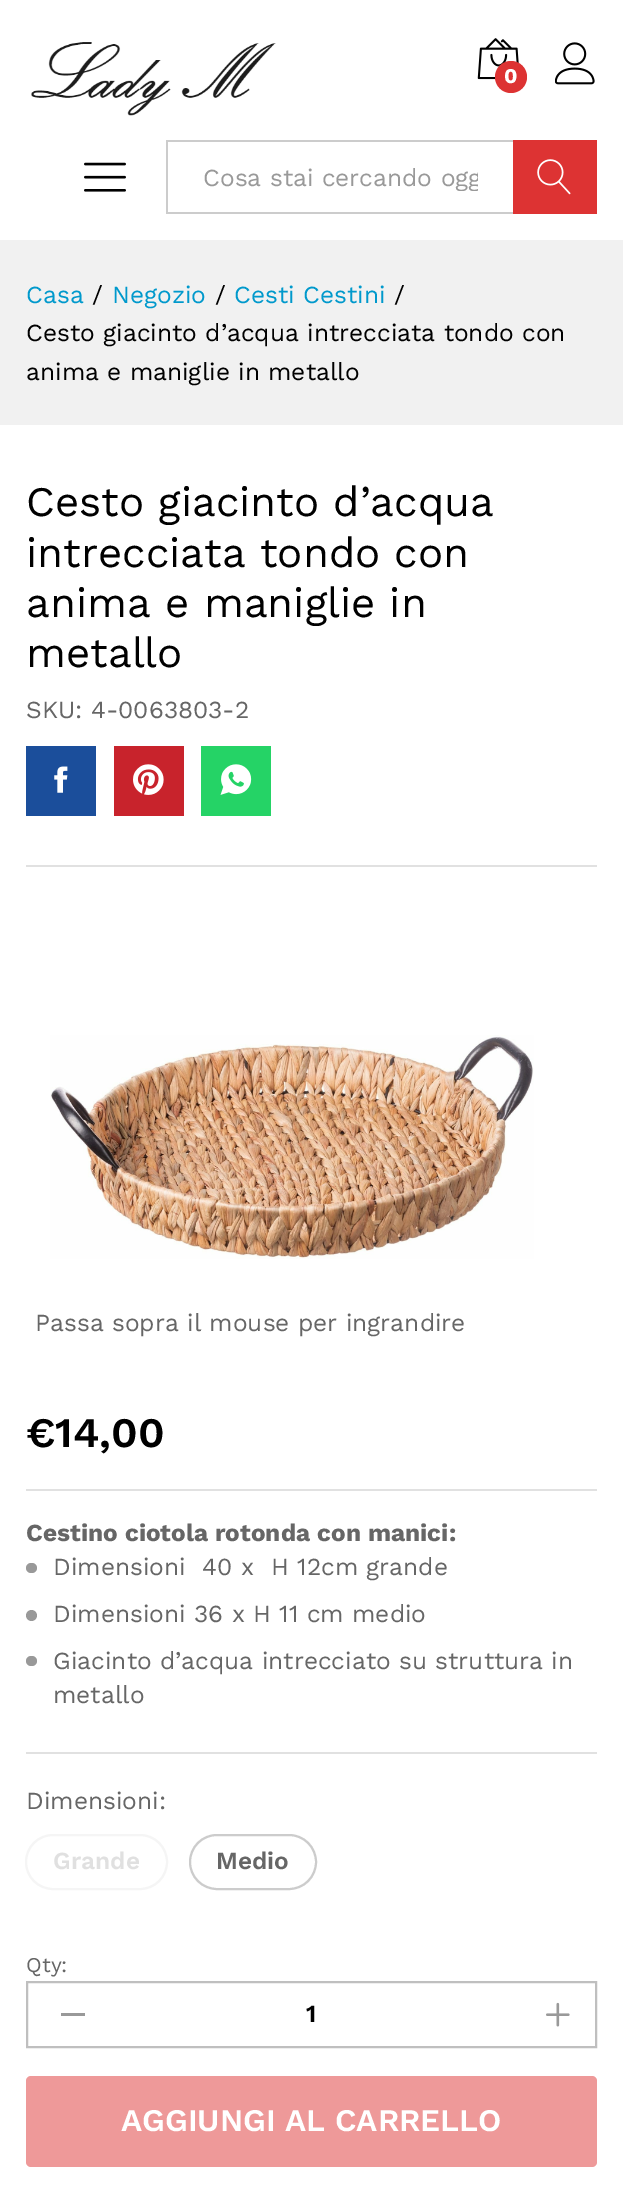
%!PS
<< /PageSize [623 2212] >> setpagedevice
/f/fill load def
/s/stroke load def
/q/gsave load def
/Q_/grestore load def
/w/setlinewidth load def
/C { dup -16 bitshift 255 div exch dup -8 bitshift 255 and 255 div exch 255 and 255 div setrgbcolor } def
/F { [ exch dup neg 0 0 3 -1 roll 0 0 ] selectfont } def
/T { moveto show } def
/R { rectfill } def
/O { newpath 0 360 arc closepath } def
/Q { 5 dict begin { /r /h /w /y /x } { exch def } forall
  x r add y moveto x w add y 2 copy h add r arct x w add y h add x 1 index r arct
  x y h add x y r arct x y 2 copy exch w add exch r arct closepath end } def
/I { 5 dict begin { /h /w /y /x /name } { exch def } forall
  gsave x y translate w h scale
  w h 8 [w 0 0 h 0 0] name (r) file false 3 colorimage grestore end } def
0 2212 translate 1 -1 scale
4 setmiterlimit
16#FFFFFF C
0 0 623 2212 R
(1.rgb) 31 42 245 74 I
(2.rgb) 477 38 42 42 I
16#DD3333 C
511 77 16 O f
/WorkSans-Bold 21 F
16#FFFFFF C
(0) 504 83 T
(3.rgb) 555 42 40 43 I
(4.rgb) 84 162 42 30 I
16#CCCCCC C
166 140 347 2 R
166 212 347 2 R
166 140 2 74 R
q
203 163 275 28 rectclip
/WorkSans-Regular 24.5 F
16#999999 C
(Cosa stai cercando ogg) 203 186 T
Q_
16#DD3333 C
513 140 84 74 R
(5.rgb) 537 159 34 36 I
16#F1F1F1 C
0 240 623 185 R
/WorkSans-Regular 24.5 F
16#0099CC C
(Casa) 26 303 T
16#000000 C
(/) 92 303 T
16#0099CC C
(Negozio) 112 303 T
16#000000 C
(/) 215 303 T
16#0099CC C
(Cesti Cestini) 234 303 T
16#000000 C
(/) 394 303 T
(Cesto giacinto d’acqua intrecciata tondo con) 26 341 T
(anima e maniglie in metallo) 26 380 T
16#E1E1E1 C
26 865 571 2 R
/WorkSans-Regular 42 F
16#000000 C
(Cesto giacinto d’acqua) 26 516 T
(intrecciata tondo con) 26 567 T
(anima e maniglie in) 26 617 T
(metallo) 26 667 T
/WorkSans-Regular 24.5 F
16#666666 C
(SKU: 4-0063803-2) 26 718 T
16#1B4E9B C
26 746 70 70 R
(6.rgb) 54 766 14 27 I
16#C8232C C
114 746 70 70 R
(7.rgb) 133 764 31 31 I
16#25D366 C
201 746 70 70 R
(8.rgb) 220 764 32 31 I
(9.rgb) 50 1035 484 224 I
16#666666 C
(Passa sopra il mouse per ingrandire) 35 1331 T
/WorkSans-SemiBold 42 F
16#000000 C
(€14,00) 26 1447 T
16#E1E1E1 C
26 1489 571 2 R
26 1752 571 2 R
/WorkSans-Bold 24.5 F
16#666666 C
(Cestino ciotola rotonda con manici:) 26 1541 T
16#999999 C
26 1563 11 10 5 Q f
/WorkSans-Regular 24.5 F
16#666666 C
(Dimensioni  40 x  H 12cm grande) 53 1575 T
16#999999 C
31.5 1615.5 5.5 O f
16#666666 C
(Dimensioni 36 x H 11 cm medio) 53 1622 T
16#999999 C
26 1656 11 10 5 Q f
16#666666 C
(Giacinto d’acqua intrecciato su struttura in) 53 1669 T
(metallo) 53 1703 T
(Dimensioni:) 26 1809 T
16#F5F5F5 C
2 w
26 1835 141 54 27 Q s
/WorkSans-SemiBold 24.5 F
16#E0E0E0 C
(Grande) 53 1869 T
16#CCCCCC C
190 1835 126 54 27 Q s
16#666666 C
(Medio) 216 1869 T
/WorkSans-Regular 21 F
(Qty:) 26 1972 T
16#BFBFBF C
27 1982 569 65 rectstroke
16#999999 C
61 2013 24 3 R
/WorkSans-SemiBold 24.5 F
16#000000 C
(1) 306 2022 T
(10.rgb) 546 2002 24 25 I
16#EE9999 C
26 2076 571 91 5 Q f
/WorkSans-SemiBold 31.5 F
16#FFFFFF C
(AGGIUNGI AL CARRELLO) 121 2131 T
showpage
